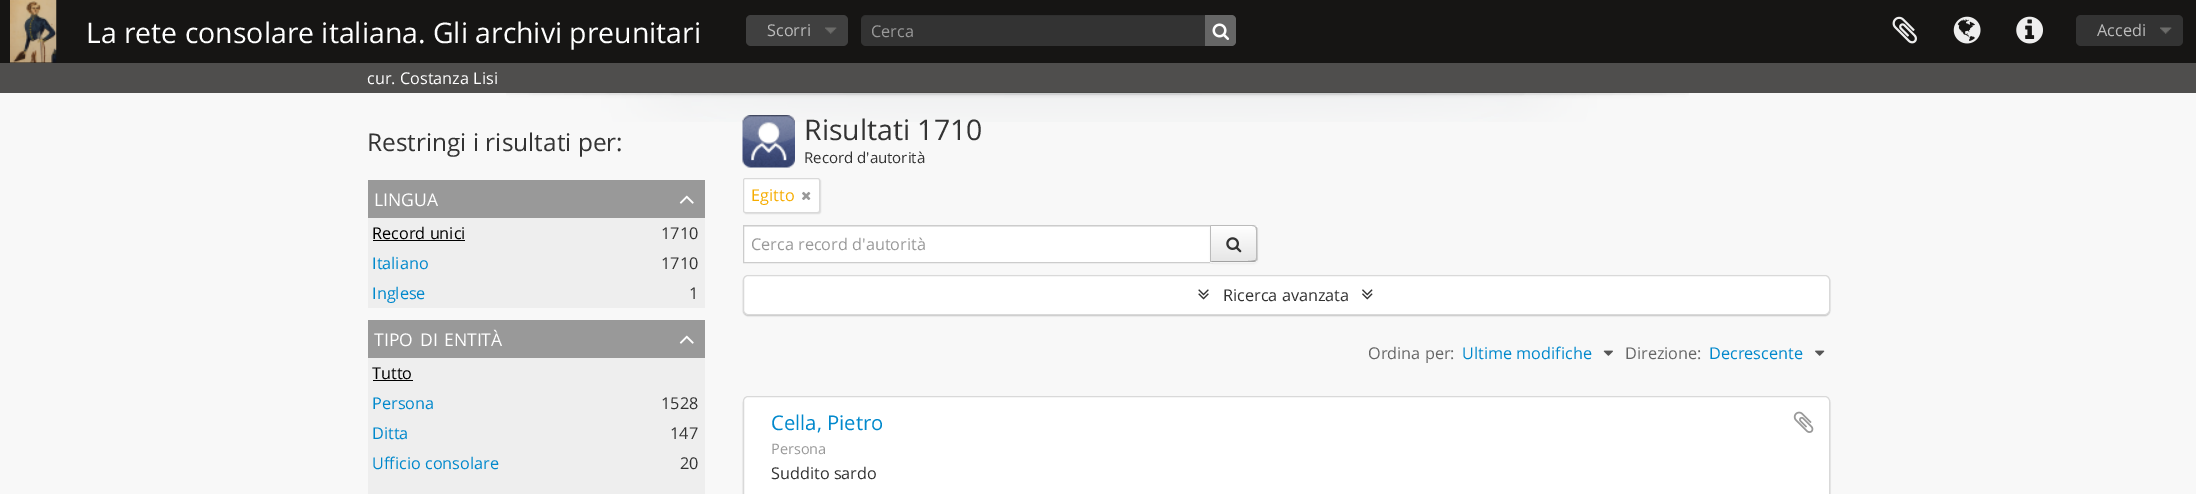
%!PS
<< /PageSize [2196 494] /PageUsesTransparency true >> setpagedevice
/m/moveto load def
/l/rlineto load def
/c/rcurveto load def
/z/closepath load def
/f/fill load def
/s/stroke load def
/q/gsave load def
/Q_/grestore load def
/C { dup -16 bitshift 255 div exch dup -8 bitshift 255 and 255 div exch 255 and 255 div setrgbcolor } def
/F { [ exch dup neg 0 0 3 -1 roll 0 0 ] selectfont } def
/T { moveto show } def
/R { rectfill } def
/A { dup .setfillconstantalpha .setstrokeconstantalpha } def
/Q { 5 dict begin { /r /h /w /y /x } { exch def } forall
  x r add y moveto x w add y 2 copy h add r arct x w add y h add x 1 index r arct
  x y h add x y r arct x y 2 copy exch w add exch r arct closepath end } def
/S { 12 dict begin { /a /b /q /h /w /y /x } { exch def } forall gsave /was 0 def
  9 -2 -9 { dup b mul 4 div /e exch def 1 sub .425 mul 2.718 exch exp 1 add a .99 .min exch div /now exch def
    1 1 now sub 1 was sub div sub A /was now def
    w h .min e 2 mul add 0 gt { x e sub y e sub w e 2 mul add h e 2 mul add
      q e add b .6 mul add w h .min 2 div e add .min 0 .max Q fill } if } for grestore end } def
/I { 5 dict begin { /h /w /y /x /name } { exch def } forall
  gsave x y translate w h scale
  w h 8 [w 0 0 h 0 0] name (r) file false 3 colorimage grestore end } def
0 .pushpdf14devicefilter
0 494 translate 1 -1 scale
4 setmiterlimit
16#F8F8F8 C
0 0 2196 494 R
16#161514 C
0 0 2196 63 R
(1.rgb) 10 0 47 63 I
/OpenSans-Regular 28.4 F
16#FFFFFF C
(La rete consolare italiana. Gli archivi preunitari) 86 43 T
16#404040 C
746 15 102 31 5 Q f
(2.rgb) 825 27 12 7 I
/OpenSans-Regular 16.25 F
16#BBBBBB C
(Scorri) 767 36 T
16#333333 C
861 15 375 31 5 Q f
0.07 A
16#000000 C
866 16 m 365 0 l 3 0 5 2 5 5 c 0 -1 l 0 -3 -2 -5 -5 -5 c -365 0 l -3 0 -5 2 -5 5 c 0 1 l 0 -3 2 -5 5 -5 c z f
1 A
16#999999 C
(Cerca) 871 37 T
16#666666 C
1205 15 m 26 0 l 3 0 5 2 5 5 c 0 21 l 0 3 -2 5 -5 5 c -26 0 l z f
(3.rgb) 1212 23 18 17 I
(4.rgb) 1892 16 25 28 I
(5.rgb) 1953 16 28 28 I
(6.rgb) 2016 16 27 28 I
16#333333 C
2076 15 107 31 5 Q f
(7.rgb) 2160 27 12 7 I
16#BBBBBB C
(Accedi) 2097 36 T
(8.rgb) 506 92 1183 30 I
0.75 A
16#161514 C
0 63 2196 30 R
1 A
16#FFFFFF C
(cur. Costanza Lisi) 367 84 T
/OpenSans-Regular 24.4 F
16#333333 C
(Restringi i risultati per:) 367 151 T
16#999999 C
368 180 337 38 R
/OpenSans-Regular 17.5 F
16#FFFFFF C
(LINGUA) 374 206 T
(9.rgb) 679 195 15 9 I
16#EEEEEE C
368 218 337 90 R
/OpenSans-Regular 16.25 F
16#000000 C
(Record unici) 372 239 T
373 240 92 1 R
16#333333 C
(1710) 661 239 T
16#0088CC C
(Italiano) 372 269 T
16#333333 C
(1710) 661 269 T
16#0088CC C
(Inglese) 372 299 T
16#333333 C
(1) 689 299 T
16#999999 C
368 320 337 38 R
/OpenSans-Regular 17.5 F
16#FFFFFF C
(TIPO) 374 346 T
(DI) 420 346 T
(ENTITÀ) 444 346 T
(9.rgb) 679 335 15 9 I
16#EEEEEE C
368 358 337 136 R
/OpenSans-Regular 16.25 F
16#000000 C
(Tutto) 372 379 T
373 380 40 1 R
16#0088CC C
(Persona) 372 409 T
16#333333 C
(1528) 661 409 T
16#0088CC C
(Ditta) 372 439 T
16#333333 C
(147) 670 439 T
16#0088CC C
(Ufficio consolare) 372 469 T
16#333333 C
(20) 680 469 T
(10.rgb) 742 115 53 53 I
/OpenSans-Regular 28.4 F
(Risultati 1710) 804 140 T
/OpenSans-Regular 15 F
(Record d'autorità) 804 163 T
16#000000 C
744 179 77 35 2.5 .5 .1 S
16#FFFFFF C
743.5 178.5 76 34 2 Q q f Q_
16#D9D9D9 C
s
/OpenSans-Regular 16.25 F
16#F6AC00 C
(Egitto) 751 201 T
(11.rgb) 802 191 9 9 I
16#FFFFFF C
744 227 466 35 R
16#ECECEC C
744 226 467 1 R
16#CCCCCC C
743.5 225.5 469 37 rectstroke
16#999999 C
(Cerca record d'autorità) 751 250 T
16#000000 C
1210 226 48 38 5 1 .05 S
16#F5F5F5 C
1210 225 m 43 0 l 3 0 5 2 5 5 c 0 28 l 0 3 -2 5 -5 5 c -43 0 l z f
q
1210 225 m 43 0 l 3 0 5 2 5 5 c 0 28 l 0 3 -2 5 -5 5 c -43 0 l z clip newpath
q 1211 226 m 47 0 l 0 35 l -47 0 l z clip newpath
<< /ShadingType 2 /ColorSpace /DeviceRGB /Coords [1234 226 1234 261] /Extend [true true] /Function << /FunctionType 2 /Domain [0 1] /C0 [1 1 1] /C1 [.902 .902 .902] /N 1 >> >> shfill Q_
Q_
16#BBBBBB C
1210 225 m 1 1 l 41 0 l 2 0 3 1 3 1 c 1 -1 l -1 0 -2 -1 -4 -1 c z f
1257.5 259.5 m -1.5 1.5 l -1 -1 l 1 -.5 1 -1 1 -2 c 0 -28 l 0 -1 0 -2 -1 -2.5 c 1 -1 l 1.5 1.5 l z f
16#A2A2A2 C
1256 261 m -1 1 -3 1 -4 1 c -42 0 l 2 -1 l 5 0 41 1 43 -1 c z f
16#BBBBBB C
1211 226 m -1 -1 l 0 37 l .5 0 l 1 -1 l -.5 0 l z f
(12.rgb) 1226 237 16 16 I
16#000000 C
743 276 1087 40 5 .5 .2 S
16#FFFFFF C
743.5 275.5 1086 39 4.5 Q q f Q_
16#D9D9D9 C
s
(13.rgb) 1198 289 11 11 I
16#333333 C
(Ricerca avanzata) 1223 301 T
(14.rgb) 1362 289 11 11 I
16#666666 C
(Ordina per:) 1368 359 T
16#0088CC C
(Ultime modifiche) 1462 359 T
(15.rgb) 1603 350 10 6 I
16#666666 C
(Direzione:) 1625 359 T
16#0088CC C
(Decrescente) 1709 359 T
(16.rgb) 1815 350 10 6 I
16#000000 C
743 398 1087 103 5 .5 .2 S
16#FFFFFF C
743.5 396.5 1086 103 4.5 Q q f Q_
16#D9D9D9 C
s
/OpenSans-Regular 20.25 F
16#0088CC C
(Cella, Pietro) 771 430 T
(17.rgb) 1793 411 21 22 I
/OpenSans-Regular 14.5 F
16#999999 C
(Persona) 771 454 T
/OpenSans-Regular 16.25 F
16#333333 C
(Suddito sardo) 771 479 T
.poppdf14devicefilter showpage
